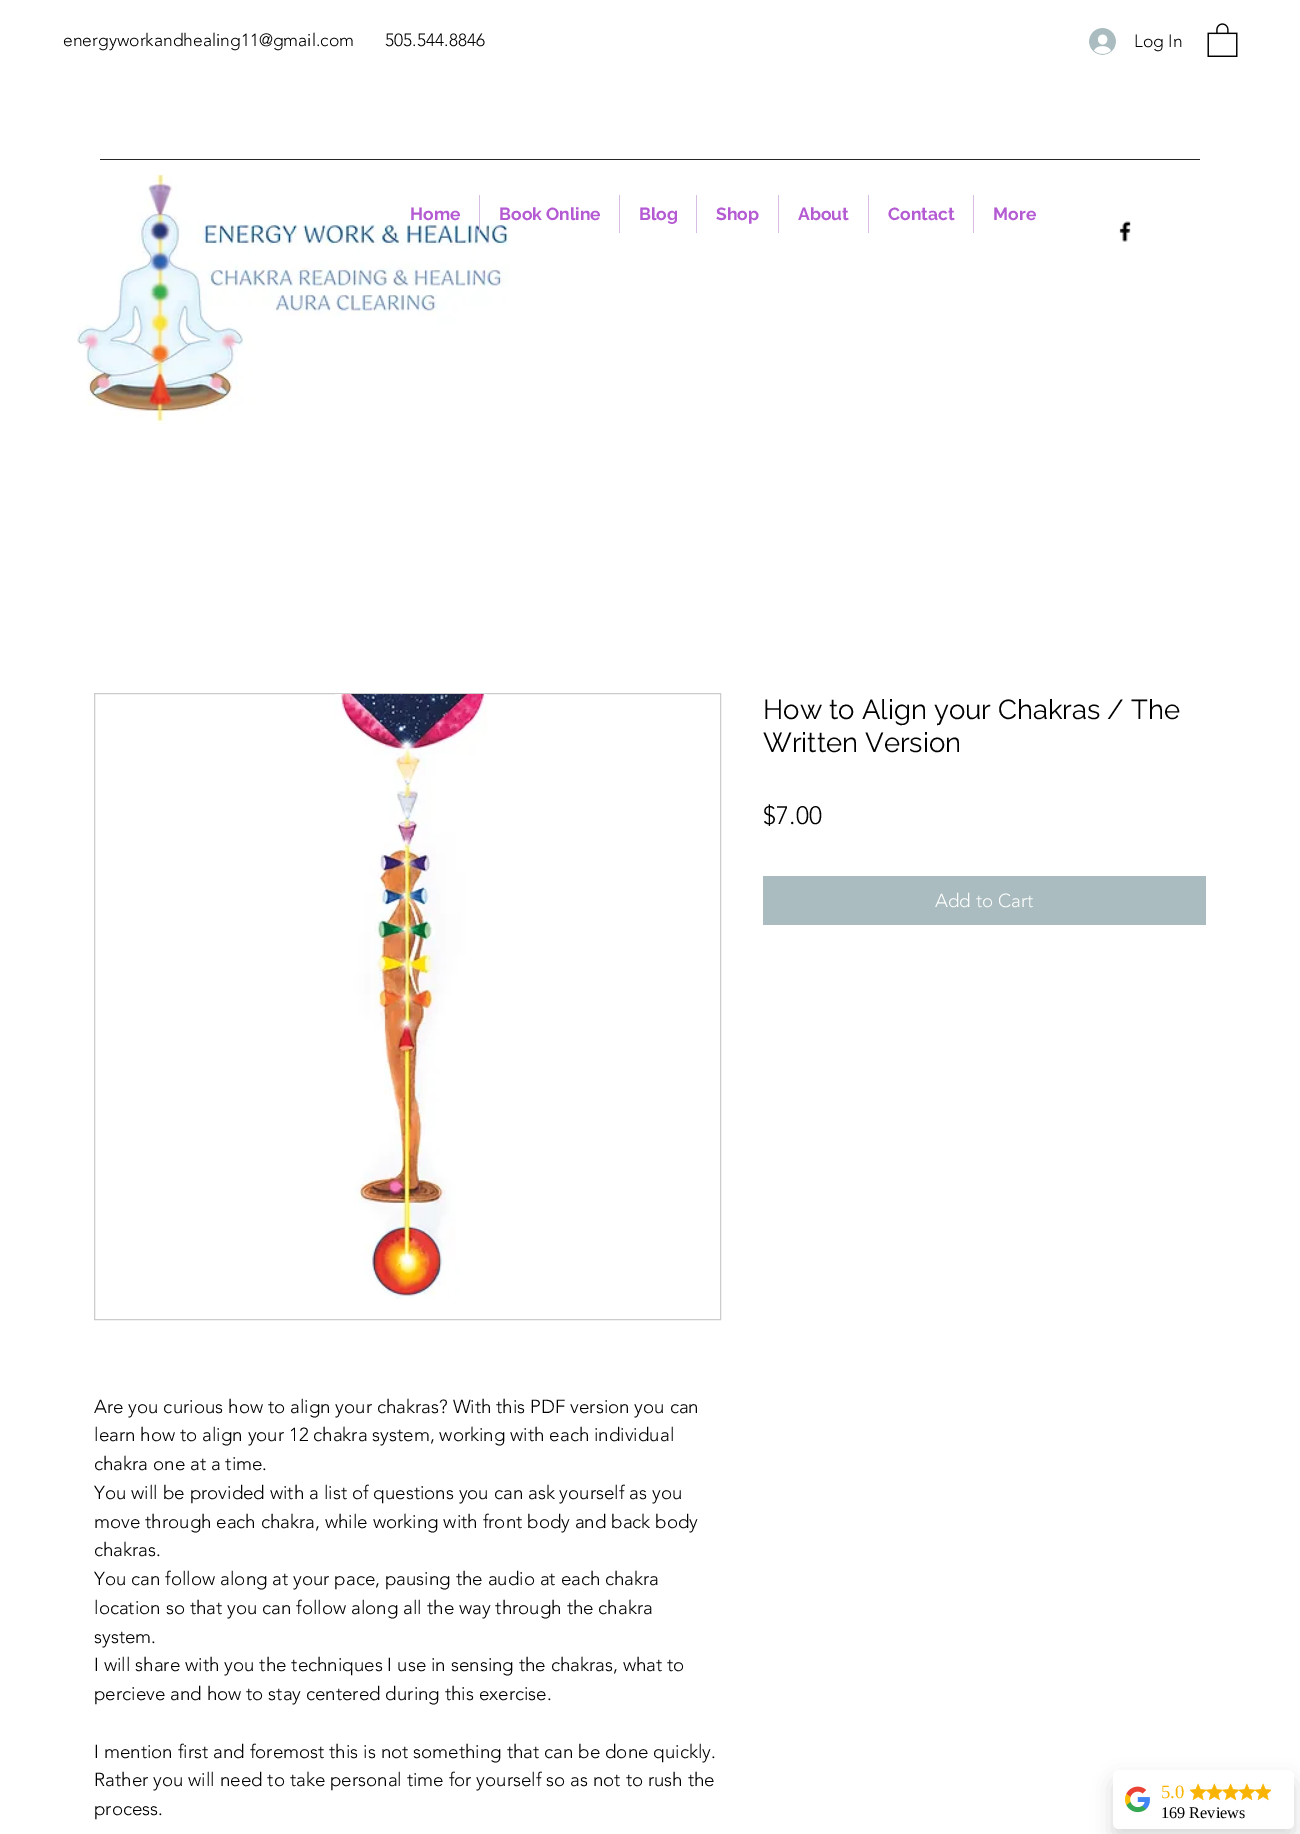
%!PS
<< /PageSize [1300 1834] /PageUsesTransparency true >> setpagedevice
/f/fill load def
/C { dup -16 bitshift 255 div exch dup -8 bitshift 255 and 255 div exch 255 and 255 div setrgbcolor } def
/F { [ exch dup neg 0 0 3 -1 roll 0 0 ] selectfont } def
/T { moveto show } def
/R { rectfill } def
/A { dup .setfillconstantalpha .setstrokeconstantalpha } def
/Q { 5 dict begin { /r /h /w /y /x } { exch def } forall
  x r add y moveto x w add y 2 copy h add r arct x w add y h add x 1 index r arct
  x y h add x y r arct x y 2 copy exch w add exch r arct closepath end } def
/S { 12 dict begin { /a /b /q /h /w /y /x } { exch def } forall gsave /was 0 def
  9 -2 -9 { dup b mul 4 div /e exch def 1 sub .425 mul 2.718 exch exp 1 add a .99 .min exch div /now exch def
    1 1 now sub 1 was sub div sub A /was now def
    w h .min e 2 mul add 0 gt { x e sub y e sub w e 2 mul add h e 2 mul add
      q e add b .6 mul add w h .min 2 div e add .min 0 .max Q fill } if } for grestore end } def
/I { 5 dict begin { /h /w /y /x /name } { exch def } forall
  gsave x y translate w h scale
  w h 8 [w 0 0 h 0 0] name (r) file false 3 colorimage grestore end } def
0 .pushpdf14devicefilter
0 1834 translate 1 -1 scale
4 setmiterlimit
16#FFFFFF C
0 0 1300 1834 R
/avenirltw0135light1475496-Light 17.5 F
16#000000 C
(energyworkandhealing11@gmail.com) 63 46 T
(505.544.8846) 385 46 T
(1.rgb) 1089 28 27 27 I
(Log In) 1134 47 T
(2.rgb) 1207 23 31 34 I
16#262626 C
100 159 1100 1 R
(3.rgb) 77 174 432 250 I
/Raleway-Bold 17.5 F
16#B45AD3 C
(Home) 410 220 T
16#D8BDE2 C
479 195 1 38 R
16#B45AD3 C
(Book Online) 499 220 T
16#D8BDE2 C
619 195 1 38 R
16#B45AD3 C
(Blog) 639 220 T
16#D8BDE2 C
696 195 1 38 R
16#B45AD3 C
(Shop) 716 220 T
16#D8BDE2 C
778 195 1 38 R
16#B45AD3 C
(About) 798 220 T
16#D8BDE2 C
868 195 1 38 R
16#B45AD3 C
(Contact) 888 220 T
16#D8BDE2 C
973 195 1 38 R
16#B45AD3 C
(More) 993 220 T
(4.rgb) 1119 221 12 21 I
/Raleway-Regular 27.5 F
16#000000 C
(How to Align your Chakras / The) 763 719 T
(Written Version) 763 752 T
/avenirltw0135light1475496-Light 25 F
($7.00) 763 824 T
16#AABCBF C
763 876 443 49 R
/avenirltw0135light1475496-Light 18.75 F
16#FFFFFF C
(Add to Cart) 935 907 T
16#CCCCCC C
94.5 693.5 626 626 rectstroke
(5.rgb) 335 694 152 605 I
16#000000 C
(Are you curious how to align your chakras? With this PDF version you can) 94 1413 T
(learn how to align your 12 chakra system, working with each individual) 94 1441 T
(chakra one at a time.) 94 1470 T
(You will be provided with a list of questions you can ask yourself as you) 94 1499 T
(move through each chakra, while working with front body and back body) 94 1528 T
(chakras.) 94 1556 T
(You can follow along at your pace, pausing the audio at each chakra) 94 1585 T
(location so that you can follow along all the way through the chakra) 94 1614 T
(system.) 94 1643 T
(I will share with you the techniques I use in sensing the chakras, what to) 94 1671 T
(percieve and how to stay centered during this exercise.) 94 1700 T
(I mention first and foremost this is not something that can be done quickly.) 94 1758 T
(Rather you will need to take personal time for yourself so as not to rush the) 94 1786 T
(process.) 94 1815 T
1113 1780 181 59 6 10 .15 S
16#FFFFFF C
1113 1770 181 59 6 Q f
(6.rgb) 1125 1786 25 27 I
/LiberationSerif-Regular 18.75 F
16#F9B403 C
(5.0) 1161 1798 T
(7.rgb) 1190 1783 16 18 I
(8.rgb) 1206 1783 17 18 I
(9.rgb) 1223 1783 16 18 I
(10.rgb) 1239 1783 16 18 I
(7.rgb) 1255 1783 16 18 I
/LiberationSerif-Regular 16.25 F
16#000000 C
(169 Reviews) 1161 1818 T
.poppdf14devicefilter showpage
